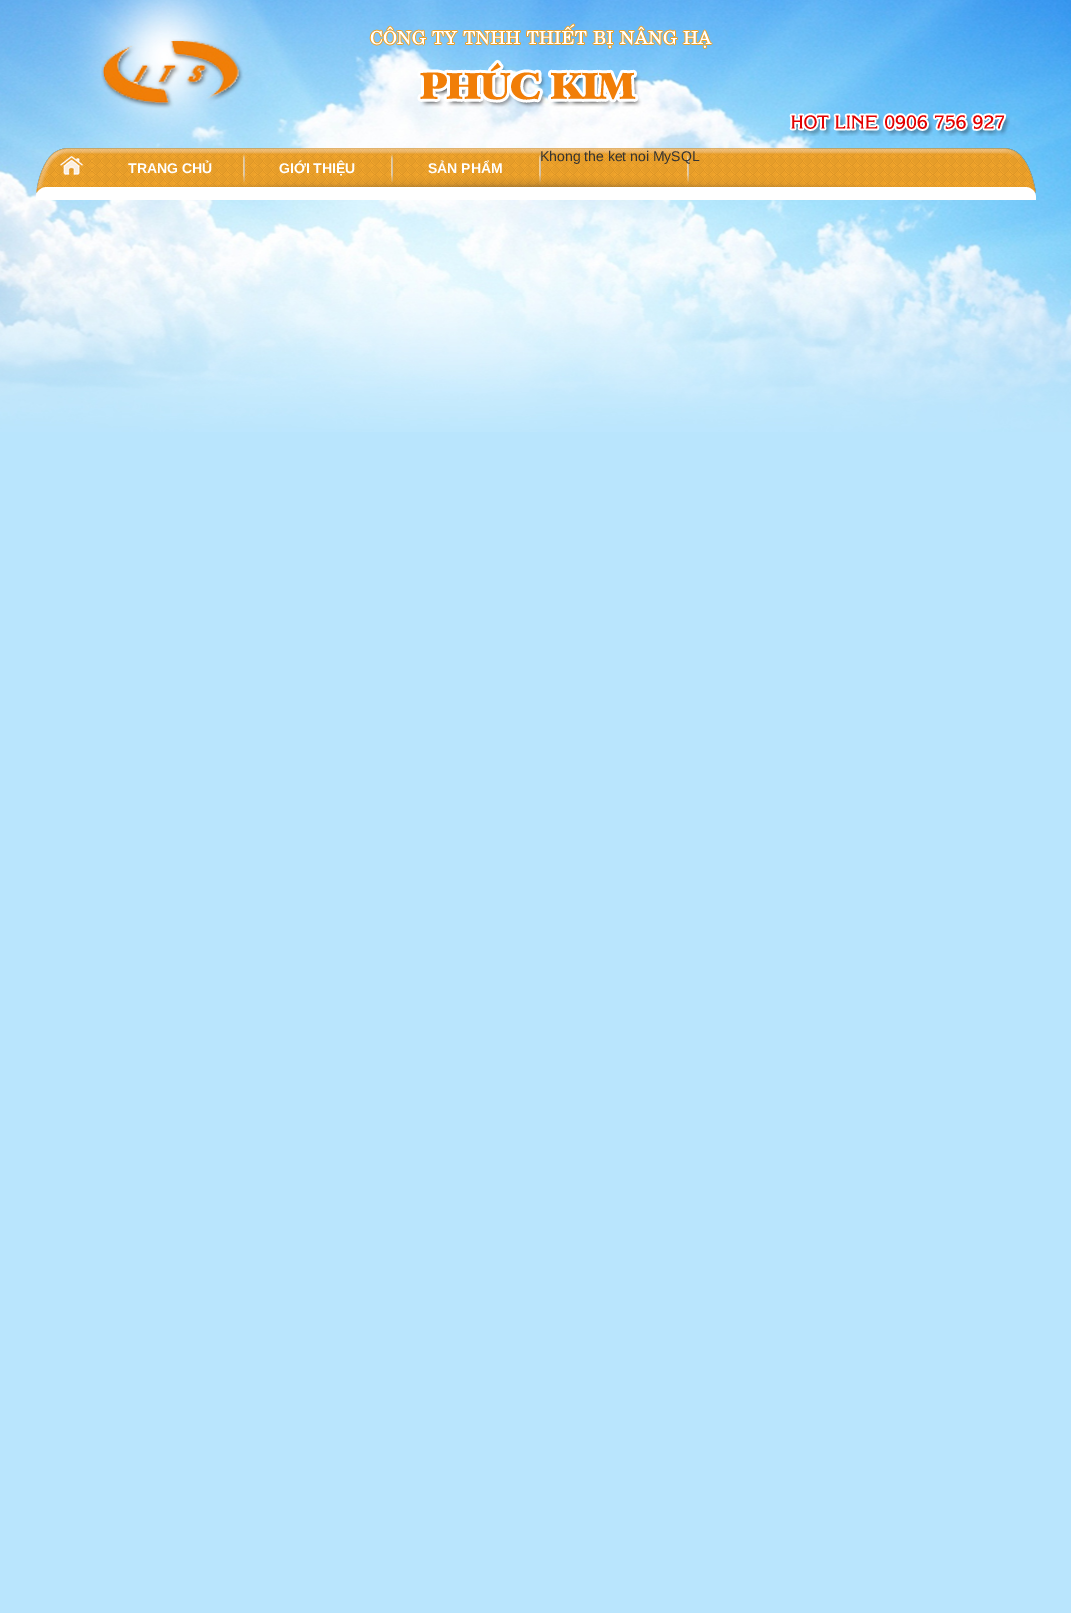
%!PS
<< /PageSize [1071 1613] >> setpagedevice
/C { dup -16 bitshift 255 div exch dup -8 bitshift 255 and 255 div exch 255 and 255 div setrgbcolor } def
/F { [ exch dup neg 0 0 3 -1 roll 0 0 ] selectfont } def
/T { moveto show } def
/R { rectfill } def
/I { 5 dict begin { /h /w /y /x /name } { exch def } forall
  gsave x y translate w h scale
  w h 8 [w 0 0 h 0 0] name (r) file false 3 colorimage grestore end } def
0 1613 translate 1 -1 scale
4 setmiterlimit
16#B9E5FD C
0 0 1071 1613 R
(1.rgb) 0 0 1071 432 I
(2.rgb) 101 23 909 113 I
(3.rgb) 36 148 1000 52 I
/LiberationSans-Bold 14 F
16#FFFFFF C
(TRANG CHỦ) 128 173 T
(GIỚI THIỆU) 279 173 T
/LiberationSans-Regular 14 F
16#333333 C
(Khong the ket noi MySQL) 540 161 T
/LiberationSans-Bold 14 F
16#FFFFFF C
(SẢN PHẨM) 428 173 T
showpage
